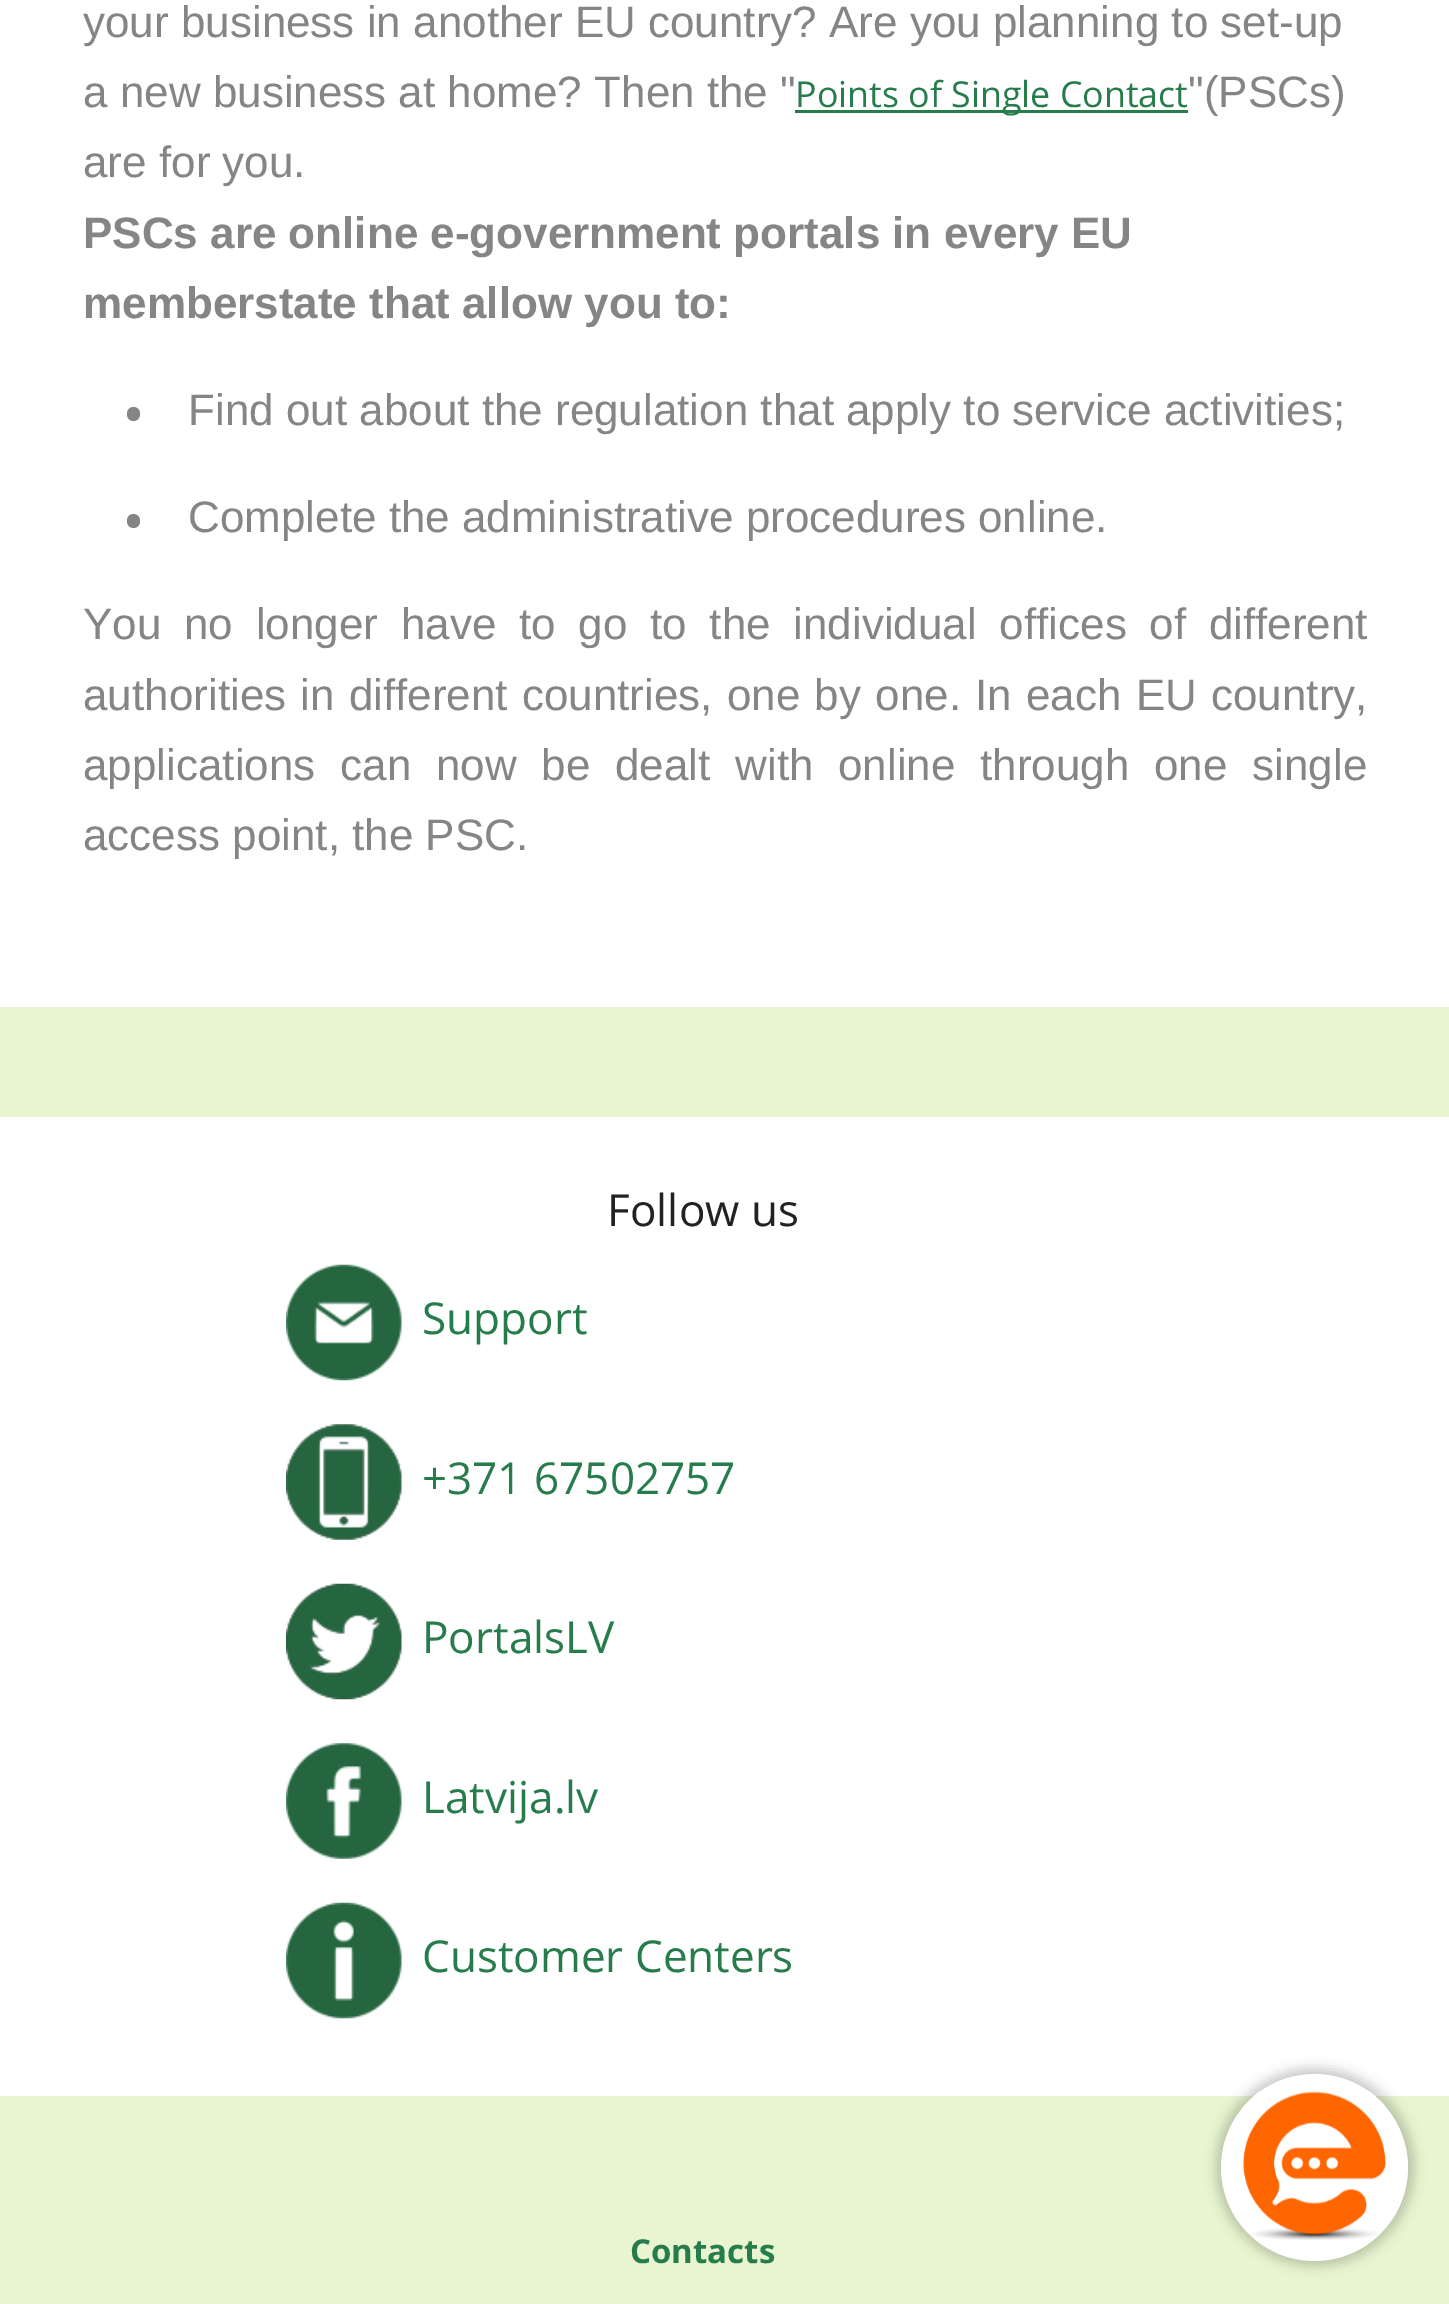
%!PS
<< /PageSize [1449 2304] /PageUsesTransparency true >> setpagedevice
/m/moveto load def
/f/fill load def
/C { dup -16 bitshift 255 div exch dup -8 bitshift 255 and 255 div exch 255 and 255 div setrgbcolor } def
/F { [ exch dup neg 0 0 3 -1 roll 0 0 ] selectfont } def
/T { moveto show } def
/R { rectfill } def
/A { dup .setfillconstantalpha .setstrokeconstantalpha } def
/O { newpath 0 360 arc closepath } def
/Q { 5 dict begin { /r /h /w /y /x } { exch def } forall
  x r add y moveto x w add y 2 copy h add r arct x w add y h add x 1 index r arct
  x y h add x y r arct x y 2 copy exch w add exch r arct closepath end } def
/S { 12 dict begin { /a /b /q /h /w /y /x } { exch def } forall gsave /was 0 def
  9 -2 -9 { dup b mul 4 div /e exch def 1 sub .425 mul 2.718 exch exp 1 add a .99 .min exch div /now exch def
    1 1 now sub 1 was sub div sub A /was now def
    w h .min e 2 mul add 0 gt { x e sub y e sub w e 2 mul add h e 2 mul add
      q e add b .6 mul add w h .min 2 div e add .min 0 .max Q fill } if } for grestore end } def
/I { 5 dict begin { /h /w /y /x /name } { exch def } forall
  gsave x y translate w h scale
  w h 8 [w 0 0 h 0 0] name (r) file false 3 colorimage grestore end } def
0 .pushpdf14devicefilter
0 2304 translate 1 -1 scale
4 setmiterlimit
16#E8F5D0 C
0 0 1449 2304 R
16#FFFFFF C
0 0 1449 1007 R
/LiberationSans-Regular 44 F
16#858585 C
(your business in another EU country? Are you planning to set-up) 83 37 T
(a new business at home? Then the ") 83 107 T
16#277C4C C
795 110 393 3 R
/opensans-Regular 35.75 F
(Points of Single Contact) 795 107 T
/LiberationSans-Regular 44 F
16#858585 C
("\(PSCs\)) 1188 107 T
(are for you.) 83 177 T
/LiberationSans-Bold 44 F
(PSCs are online e-government portals in every EU) 83 248 T
(memberstate that allow you to:) 83 318 T
127 407 13 14 6.5 Q f
/LiberationSans-Regular 44 F
(Find out about the regulation that apply to service activities;) 188 425 T
127 514 13 14 6.5 Q f
(Complete the administrative procedures online.) 188 532 T
83 639 m 10.5 0 32 (You no longer have to go to the individual offices of different) widthshow
83 710 m 2 0 32 (authorities in different countries, one by one. In each EU country,) widthshow
83 780 m 12.5 0 32 (applications can now be dealt with online through one single) widthshow
(access point, the PSC.) 83 850 T
16#FFFFFF C
0 1117 1449 979 R
/opensans-Regular 44 F
16#222222 C
(Follow us) 607 1226 T
(1.rgb) 286 1264 116 117 I
16#277C4C C
(Support) 422 1334 T
(2.rgb) 286 1424 116 116 I
(+371 67502757) 422 1494 T
(3.rgb) 286 1583 116 117 I
(PortalsLV) 422 1653 T
(4.rgb) 286 1743 116 116 I
(Latvija.lv) 422 1813 T
(5.rgb) 286 1902 116 117 I
(Customer Centers) 422 1972 T
/opensans-Bold 33 F
(Contacts) 630 2263 T
16#000000 C
1216 2068 198 198 99 5.5 .2 S
16#FFFFFF C
1314.5 2167.5 93.5 O f
(6.rgb) 1243 2091 143 149 I
.poppdf14devicefilter showpage
